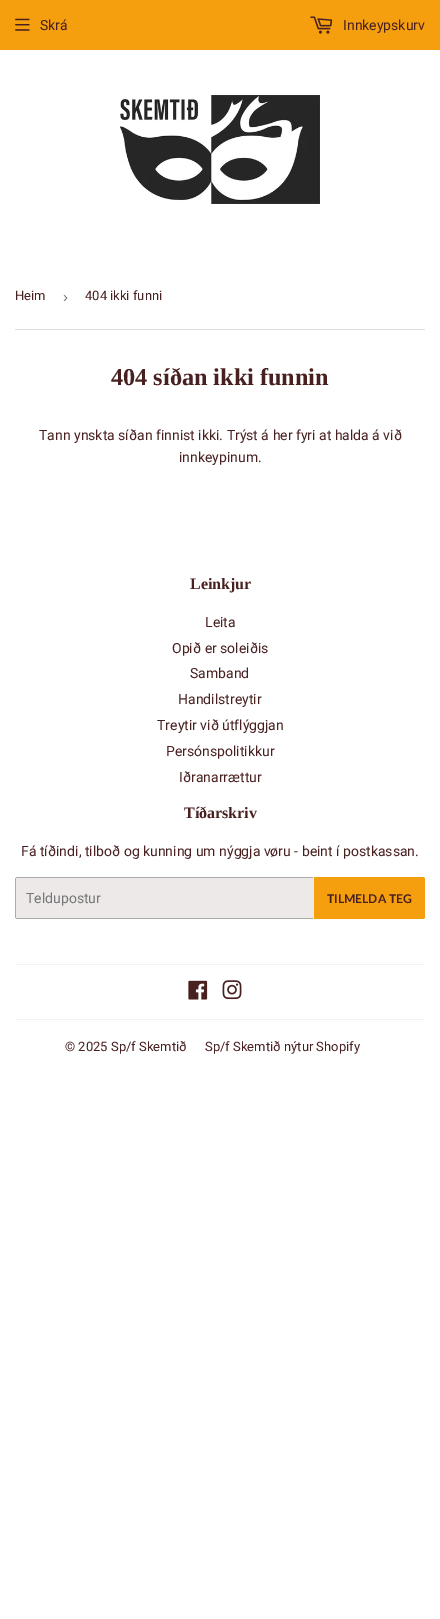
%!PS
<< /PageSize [440 1619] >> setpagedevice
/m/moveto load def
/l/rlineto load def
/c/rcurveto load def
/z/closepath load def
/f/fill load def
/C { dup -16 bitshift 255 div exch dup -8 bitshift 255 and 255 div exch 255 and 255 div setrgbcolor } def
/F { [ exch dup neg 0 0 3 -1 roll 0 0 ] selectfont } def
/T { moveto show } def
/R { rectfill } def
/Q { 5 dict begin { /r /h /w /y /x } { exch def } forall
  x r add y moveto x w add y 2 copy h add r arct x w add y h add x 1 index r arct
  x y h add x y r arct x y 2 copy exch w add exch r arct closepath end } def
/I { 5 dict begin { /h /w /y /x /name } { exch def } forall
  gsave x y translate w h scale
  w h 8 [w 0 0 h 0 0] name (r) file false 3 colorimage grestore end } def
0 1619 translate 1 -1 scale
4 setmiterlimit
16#FFFFFF C
0 0 440 1619 R
16#F59F0E C
0 0 440 50 R
(1.rgb) 15 18 15 13 I
/Roboto-Regular 14 F
16#482020 C
(Skrá) 40 30 T
(2.rgb) 310 16 23 18 I
(Innkeypskurv) 343 30 T
(3.rgb) 120 95 200 109 I
16#DEDEDE C
15 329 410 1 R
/Roboto-Regular 13 F
16#482020 C
(Heim) 15 300 T
/LiberationSans-Regular 15 F
16#767676 C
(›) 63 302 T
/Roboto-Regular 13 F
16#482020 C
(404 ikki funni) 85 300 T
/LiberationSerif-Bold 24.25 F
(404 síðan ikki funnin) 111 385 T
/Roboto-Regular 14 F
(Tann ynskta síðan finnist ikki. Trýst á her fyri at halda á við) 39 440 T
(innkeypinum.) 179 462 T
/LiberationSerif-Bold 16 F
(Leinkjur) 190 589 T
/Roboto-Regular 14 F
(Leita) 205 627 T
(Opið er soleiðis) 172 653 T
(Samband) 190 678 T
(Handilstreytir) 178 704 T
(Treytir við útflýggjan) 157 730 T
(Persónspolitikkur) 166 756 T
(Iðranarrættur) 179 782 T
/LiberationSerif-Bold 16 F
(Tíðarskriv) 184 818 T
/Roboto-Regular 14 F
(Fá tíðindi, tilboð og kunning um nýggja vøru - beint í postkassan.) 21 856 T
16#EDE9E9 C
15 877 299 42 2 Q f
16#ABABAB C
16 877 297 1 R
16 918 297 1 R
15 878 1 40 R
16#767676 C
(Teldupostur) 26 903 T
16#F59F0E C
314 877 m 109 0 l 1 0 2 1 2 2 c 0 38 l 0 1 -1 2 -2 2 c -109 0 l z f
/Lato-Bold 12 F
16#482020 C
(TILMELDA TEG) 327 903 T
16#F2F2F2 C
15 964 410 1 R
(4.rgb) 188 980 20 20 I
(5.rgb) 222 980 20 20 I
15 1019 410 1 R
/Roboto-Regular 13 F
16#482020 C
(© 2025 Sp/f Skemtið) 65 1051 T
(Sp/f Skemtið nýtur Shopify) 205 1051 T
showpage
